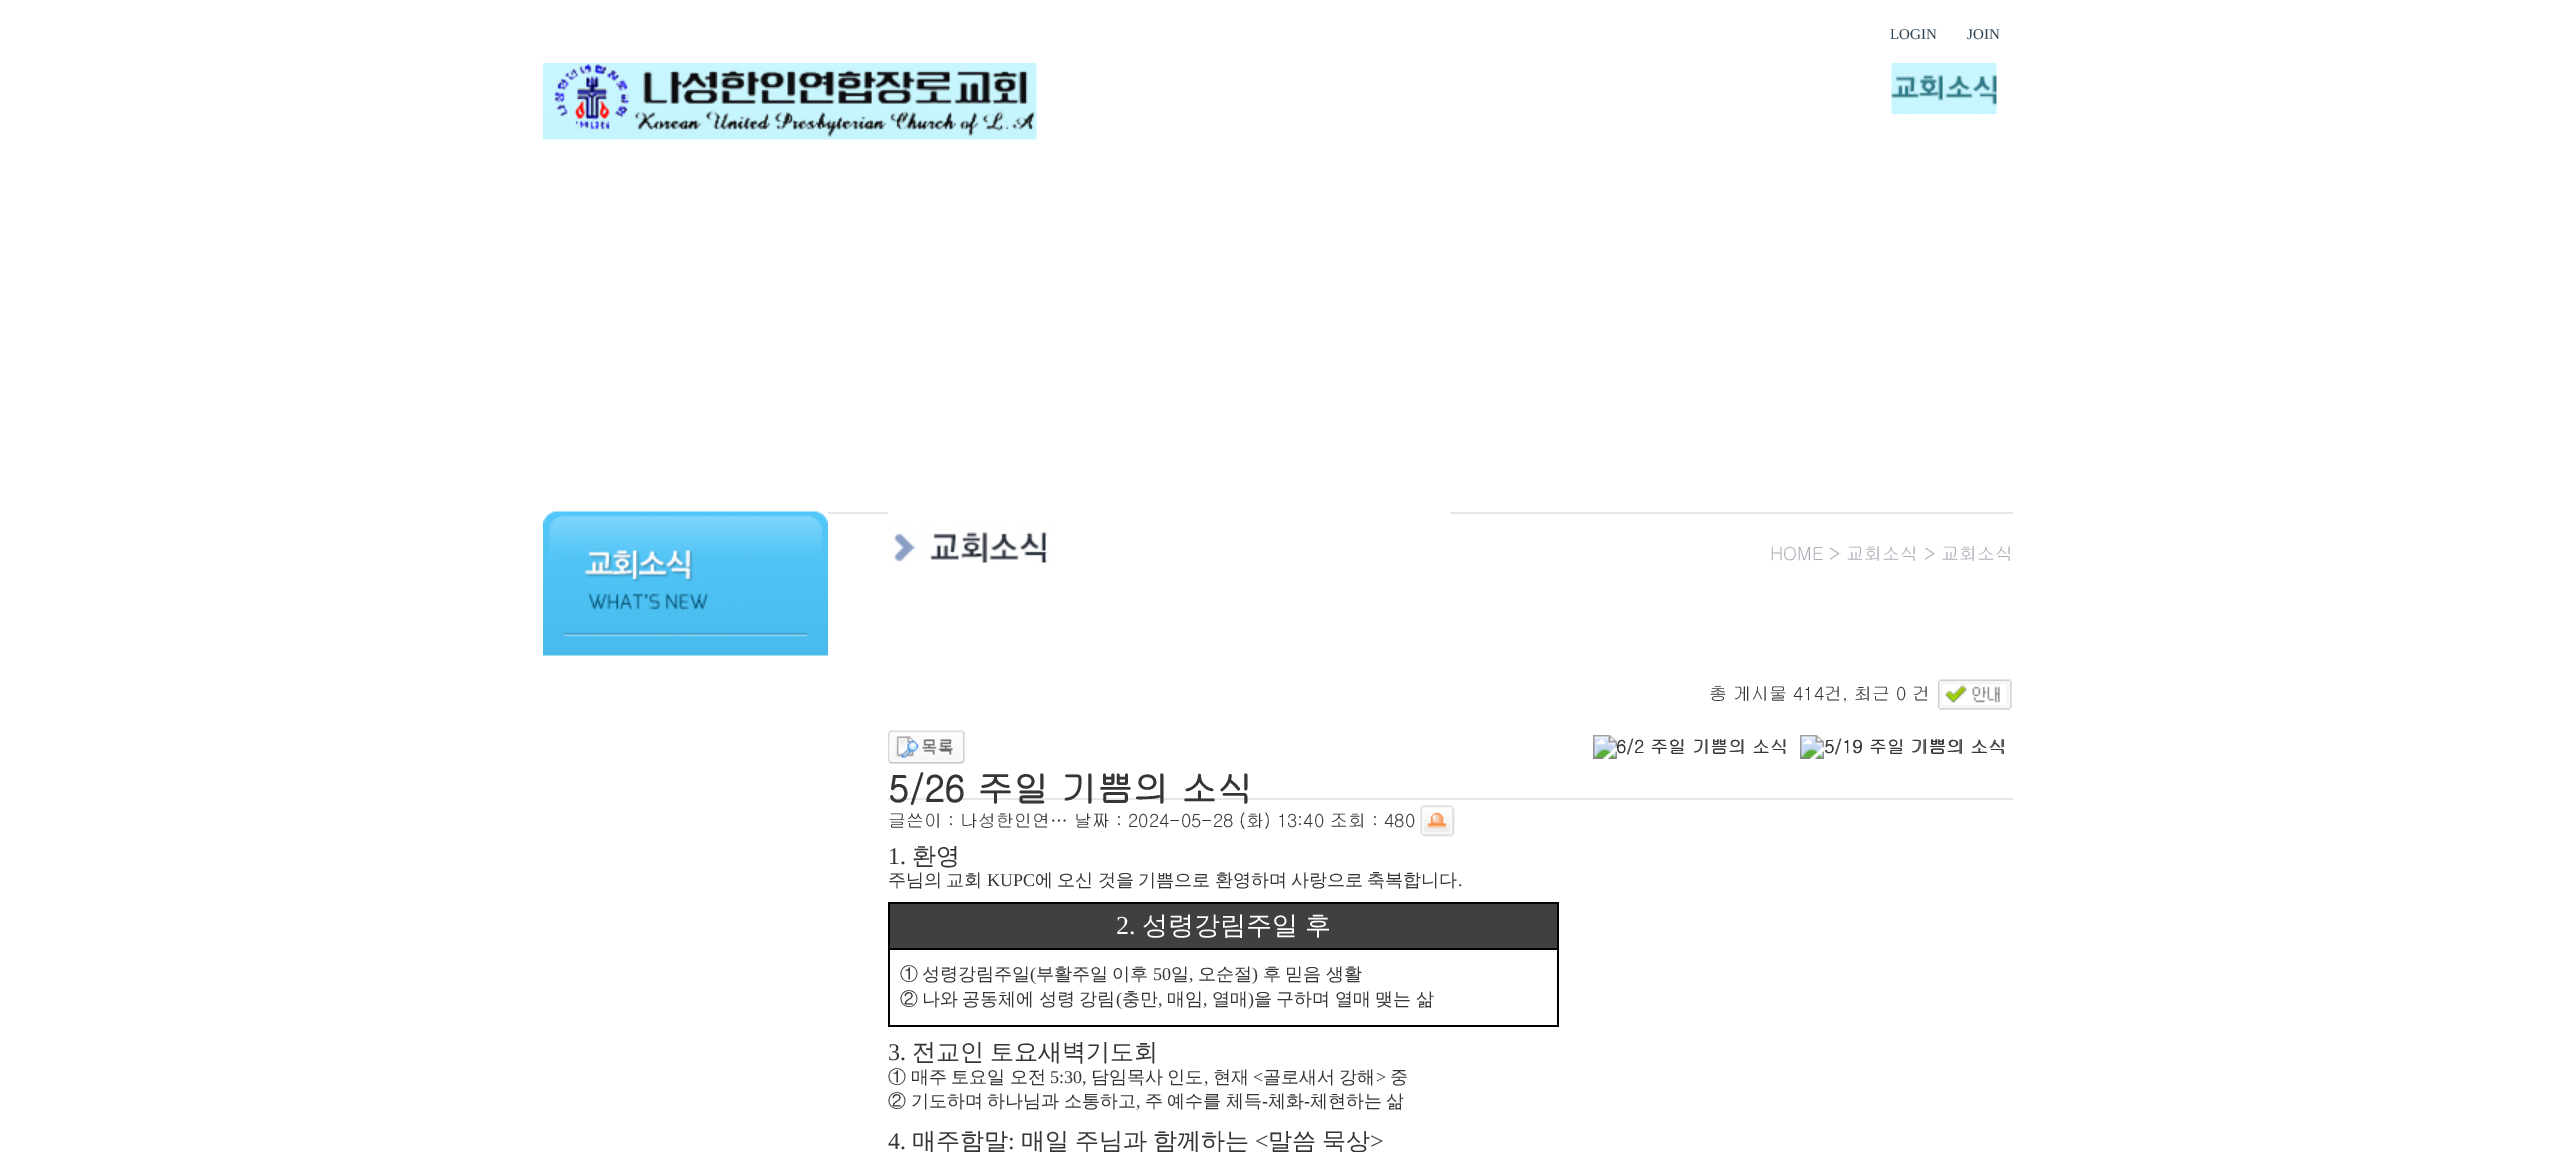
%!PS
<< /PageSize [2555 1152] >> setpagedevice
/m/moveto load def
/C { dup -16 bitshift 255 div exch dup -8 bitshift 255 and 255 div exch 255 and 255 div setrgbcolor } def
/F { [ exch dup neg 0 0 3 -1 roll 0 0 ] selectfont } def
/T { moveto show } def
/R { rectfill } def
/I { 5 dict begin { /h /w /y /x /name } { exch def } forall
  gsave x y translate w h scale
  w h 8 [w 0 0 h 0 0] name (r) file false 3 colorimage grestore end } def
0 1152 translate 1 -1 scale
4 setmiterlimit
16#FFFFFF C
0 0 2555 1152 R
/LiberationSerif-Regular 15 F
16#304555 C
(LOGIN) 1890 39 T
(JOIN) 1967 39 T
(1.rgb) 543 63 494 77 I
(2.rgb) 1891 63 106 51 I
(3.rgb) 543 511 285 145 I
16#E5E5E5 C
828 512 1185 2 R
(4.rgb) 888 512 563 51 I
/Gulim-Regular 18 F
16#A8ADB5 C
(HOME > 교회소식 > 교회소식) 1770 560 T
16#353535 C
(총 게시물 414건, 최근 0 건) 1709 700 T
(5.rgb) 1937 679 75 31 I
(6.rgb) 888 730 77 34 I
(7.rgb) 1593 735 193 24 I
(6/2 주일 기쁨의 소식) 1616 753 T
(8.rgb) 1800 735 204 24 I
(5/19 주일 기쁨의 소식) 1824 753 T
16#E7E7E7 C
888 798 1125 2 R
/Gulim-Bold 36 F
16#353535 C
(5/26 주일 기쁨의 소식) 888 802 T
/Gulim-Regular 18 F
(글쓴이 : 나성한인연… 날짜 : 2024-05-28 \(화\) 13:40 조회 : 480) 888 827 T
(9.rgb) 1420 805 35 32 I
/LiberationSerif-Regular 24 F
(1.) 888 864 T
/WenQuanYiZenHei-Medium 24 F
(환영) 912 864 T
/WenQuanYiZenHei-Medium 18 F
888 886 m -1 0 32 (주님의 교회) widthshow
/LiberationSerif-Regular 18 F
(KUPC) 987 886 T
/WenQuanYiZenHei-Medium 18 F
1035 886 m -1 0 32 (에 오신 것을 기쁨으로 환영하며 사랑으로 축복합니다) widthshow
/LiberationSerif-Regular 18 F
(.) 1458 886 T
16#404040 C
890 904 667 44 R
16#000000 C
888 902 671 2 R
888 948 671 2 R
1557 948 2 78 R
1557 902 2 48 R
888 1025 671 2 R
888 948 2 78 R
888 902 2 48 R
/LiberationSerif-Regular 26 F
16#FFFFFF C
(2.) 1116 934 T
/WenQuanYiZenHei-Medium 26 F
1142 934 m -1 0 32 (성령강림주일 후) widthshow
/WenQuanYiZenHei-Medium 18 F
16#353535 C
(①) 900 980 T
(성령강림주일) 922 980 T
/LiberationSerif-Regular 18 F
(\() 1030 980 T
/WenQuanYiZenHei-Medium 18 F
1036 980 m -1 0 32 (부활주일 이후) widthshow
/LiberationSerif-Regular 18 F
(50) 1153 980 T
/WenQuanYiZenHei-Medium 18 F
(일) 1171 980 T
/LiberationSerif-Regular 18 F
(,) 1189 980 T
/WenQuanYiZenHei-Medium 18 F
(오순절) 1198 980 T
/LiberationSerif-Regular 18 F
(\)) 1252 980 T
/WenQuanYiZenHei-Medium 18 F
1263 980 m -1 0 32 (후 믿음 생활) widthshow
(②) 900 1005 T
922 1005 m -1 0 32 (나와 공동체에 성령 강림) widthshow
/LiberationSerif-Regular 18 F
(\() 1116 1005 T
/WenQuanYiZenHei-Medium 18 F
(충만) 1122 1005 T
/LiberationSerif-Regular 18 F
(,) 1158 1005 T
/WenQuanYiZenHei-Medium 18 F
(매임) 1167 1005 T
/LiberationSerif-Regular 18 F
(,) 1203 1005 T
/WenQuanYiZenHei-Medium 18 F
(열매) 1212 1005 T
/LiberationSerif-Regular 18 F
(\)) 1248 1005 T
/WenQuanYiZenHei-Medium 18 F
1254 1005 m -1 0 32 (을 구하며 열매 맺는 삶) widthshow
/LiberationSerif-Regular 24 F
(3.) 888 1060 T
/WenQuanYiZenHei-Medium 24 F
912 1060 m -1 0 32 (전교인 토요새벽기도회) widthshow
/WenQuanYiZenHei-Medium 18 F
(①) 888 1083 T
911 1083 m -1 0 32 (매주 토요일 오전) widthshow
/LiberationSerif-Regular 18 F
(5:30,) 1050 1083 T
/WenQuanYiZenHei-Medium 18 F
1091 1083 m -1 0 32 (담임목사 인도) widthshow
(현재) 1213 1083 T
/LiberationSerif-Regular 18 F
(<) 1253 1083 T
/WenQuanYiZenHei-Medium 18 F
1263 1083 m -1 0 32 (골로새서 강해) widthshow
/LiberationSerif-Regular 18 F
(>) 1376 1083 T
/WenQuanYiZenHei-Medium 18 F
(중) 1390 1083 T
/LiberationSerif-Regular 18 F
(,) 1204 1083 T
/WenQuanYiZenHei-Medium 18 F
(②) 888 1107 T
911 1107 m -1 0 32 (기도하며 하나님과 소통하고) widthshow
1145 1107 m -1 0 32 (주 예수를 체득) widthshow
/LiberationSerif-Regular 18 F
(-) 1262 1107 T
/WenQuanYiZenHei-Medium 18 F
(체화) 1268 1107 T
/LiberationSerif-Regular 18 F
(-) 1304 1107 T
/WenQuanYiZenHei-Medium 18 F
1310 1107 m -1 0 32 (체현하는 삶) widthshow
/LiberationSerif-Regular 18 F
(,) 1136 1107 T
/LiberationSerif-Regular 24 F
(4.) 888 1149 T
/WenQuanYiZenHei-Medium 24 F
(매주함말) 912 1149 T
/LiberationSerif-Regular 24 F
(:) 1008 1149 T
/WenQuanYiZenHei-Medium 24 F
1021 1149 m -1 0 32 (매일 주님과 함께하는) widthshow
/LiberationSerif-Regular 24 F
(<) 1255 1149 T
/WenQuanYiZenHei-Medium 24 F
1268 1149 m -1 0 32 (말씀 묵상) widthshow
/LiberationSerif-Regular 24 F
(>) 1370 1149 T
showpage
